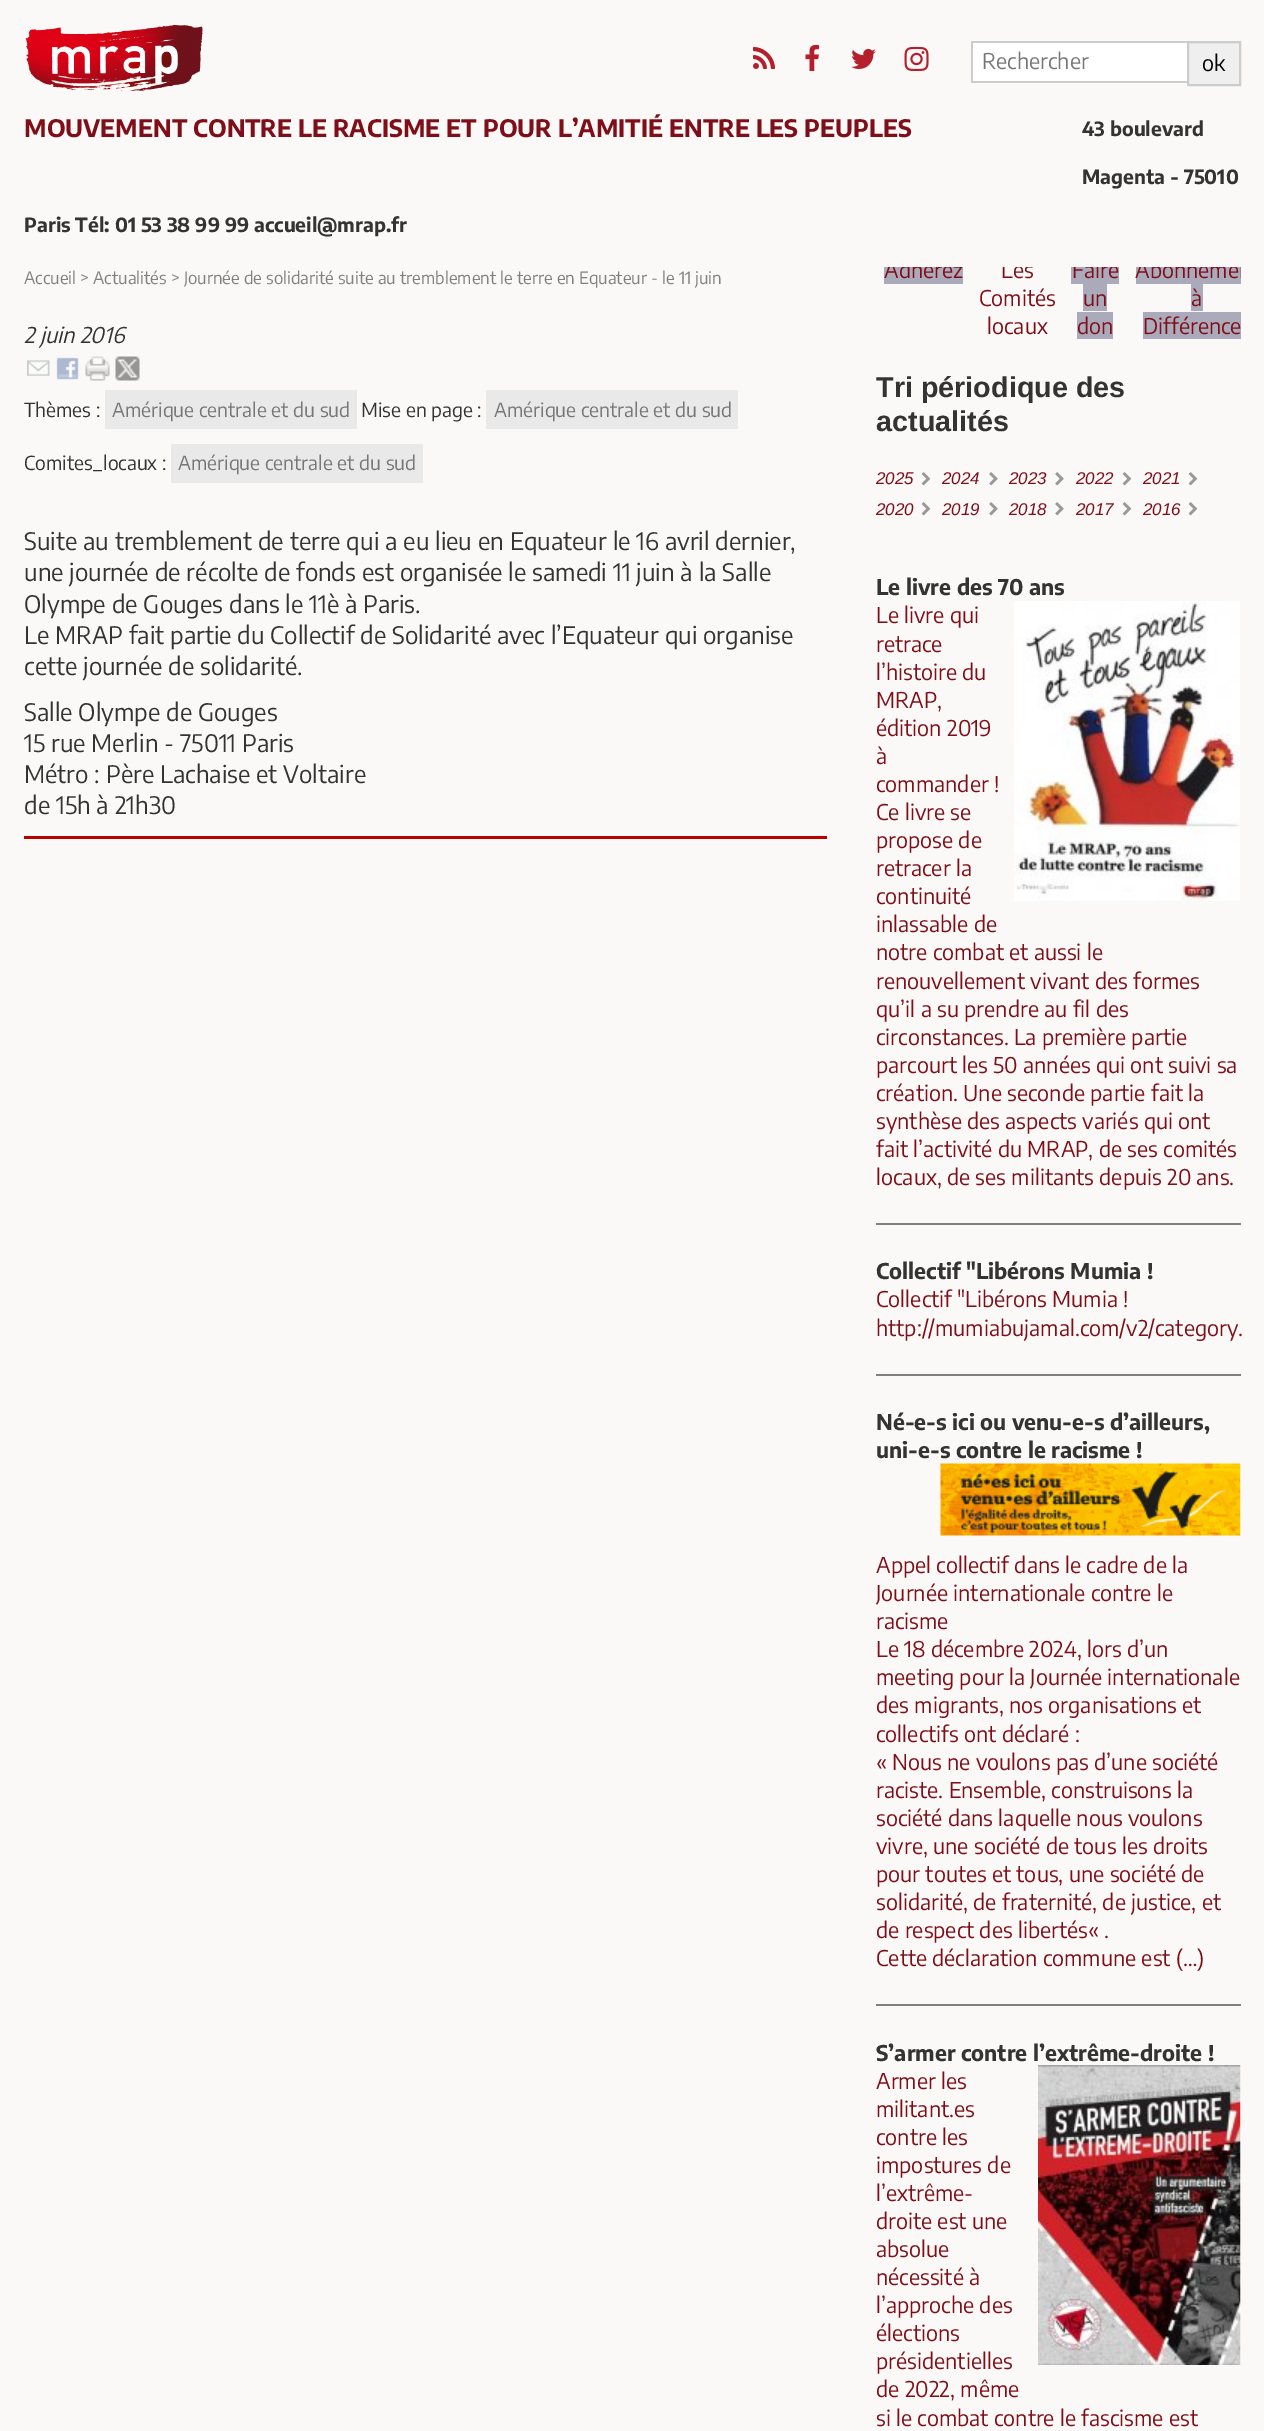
%!PS
<< /PageSize [1264 2431] >> setpagedevice
/m/moveto load def
/l/rlineto load def
/z/closepath load def
/f/fill load def
/s/stroke load def
/q/gsave load def
/Q_/grestore load def
/w/setlinewidth load def
/C { dup -16 bitshift 255 div exch dup -8 bitshift 255 and 255 div exch 255 and 255 div setrgbcolor } def
/F { [ exch dup neg 0 0 3 -1 roll 0 0 ] selectfont } def
/T { moveto show } def
/R { rectfill } def
/I { 5 dict begin { /h /w /y /x /name } { exch def } forall
  gsave x y translate w h scale
  w h 8 [w 0 0 h 0 0] name (r) file false 3 colorimage grestore end } def
0 2431 translate 1 -1 scale
4 setmiterlimit
16#FAF9F7 C
0 0 1264 2431 R
16#AAAABB C
884 267 79 17 R
/EncodeSans-Regular 21.6 F
16#800E18 C
(Adhérez) 884 278 T
(Les) 1001 278 T
16#AAAABB C
1071 267 48 17 R
16#800E18 C
(Faire) 1072 278 T
16#AAAABB C
1136 267 105 17 R
q
876 0 365 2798 rectclip
16#800E18 C
(Abonnemen) 1135 278 T
Q_
16#FAF9F7 C
887 260 354 7 R
(1.rgb) 753 46 23 23 I
(2.rgb) 805 44 15 27 I
(3.rgb) 851 48 25 21 I
(4.rgb) 904 46 25 25 I
16#FFFFFF C
973 43 214 38 R
16#CCCCCC C
971 41 216 2 R
971 81 216 2 R
971 41 2 42 R
16#777777 C
(Rechercher) 982 69 T
16#EFEFEF C
1188 42 m 52 0 l 0 43 l -52 0 l z q f Q_
16#CCCCCC C
2 w
s
16#000000 C
(ok) 1202 71 T
(5.rgb) 25 24 178 67 I
/EncodeSans-Bold 24 F
16#800E18 C
(MOUVEMENT CONTRE LE RACISME ET POUR L’AMITIÉ ENTRE LES PEUPLES) 24 137 T
/EncodeSans-Bold 19.5 F
16#333333 C
(43 boulevard) 1082 136 T
(Magenta - 75010) 1082 184 T
(Paris Tél: 01 53 38 99 99 accueil@mrap.fr) 24 232 T
/EncodeSans-Regular 16.8 F
16#808080 C
(Accueil > Actualités > Journée de solidarité suite au tremblement le terre en Equateur - le 11 juin) 24 284 T
/EncodeSans-Italic 21.6 F
16#333333 C
(2 juin 2016) 24 343 T
(6.rgb) 27 360 23 16 I
(7.rgb) 56 357 23 23 I
(8.rgb) 85 356 25 25 I
(9.rgb) 115 356 25 25 I
/EncodeSans-Regular 19.25 F
(Thèmes :) 24 417 T
16#E9E9E9 C
105 390 252 39 R
16#777777 C
(Amérique centrale et du sud) 112 417 T
16#333333 C
(Mise en page :) 361 417 T
16#E9E9E9 C
486 390 252 39 R
16#777777 C
(Amérique centrale et du sud) 494 417 T
16#333333 C
(Comites_locaux :) 24 470 T
16#E9E9E9 C
171 444 252 39 R
16#777777 C
(Amérique centrale et du sud) 178 470 T
/EncodeSans-Regular 24 F
16#333333 C
(Suite au tremblement de terre qui a eu lieu en Equateur le 16 avril dernier,) 24 550 T
(une journée de récolte de fonds est organisée le samedi 11 juin à la Salle) 24 581 T
(Olympe de Gouges dans le 11è à Paris.) 24 613 T
(Le MRAP fait partie du Collectif de Solidarité avec l’Equateur qui organise) 24 644 T
(cette journée de solidarité.) 24 675 T
(Salle Olympe de Gouges) 24 721 T
(15 rue Merlin - 75011 Paris) 24 752 T
(Métro : Père Lachaise et Voltaire) 24 783 T
(de 15h à 21h30) 24 814 T
16#BB0000 C
24 836 803 3 R
/EncodeSans-Regular 21.6 F
16#800E18 C
(Comités) 979 306 T
(locaux) 987 334 T
16#AAAABB C
1083 284 24 27 R
16#800E18 C
(un) 1083 306 T
16#AAAABB C
1077 312 36 27 R
16#800E18 C
(don) 1077 334 T
16#AAAABB C
1191 284 12 27 R
16#800E18 C
(à) 1191 306 T
16#AAAABB C
1143 312 98 27 R
16#800E18 C
(Différence) 1143 334 T
q
876 0 365 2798 rectclip
/LiberationSans-Bold 28.75 F
16#333333 C
(Tri périodique des) 876 397 T
Q_
/LiberationSans-Bold 28.75 F
16#333333 C
(actualités) 876 431 T
/LiberationSans-Italic 17 F
16#800E18 C
(2025) 876 484 T
(10.rgb) 921 472 10 14 I
(2024) 942 484 T
(11.rgb) 989 472 9 14 I
(2023) 1009 484 T
(11.rgb) 1055 472 9 14 I
(2022) 1076 484 T
(10.rgb) 1122 472 10 14 I
(2021) 1143 484 T
(10.rgb) 1188 472 10 14 I
(2020) 876 515 T
(10.rgb) 921 502 10 14 I
(2019) 942 515 T
(11.rgb) 989 502 9 14 I
(2018) 1009 515 T
(11.rgb) 1055 502 9 14 I
(2017) 1076 515 T
(10.rgb) 1122 502 10 14 I
(2016) 1143 515 T
(10.rgb) 1188 502 10 14 I
/EncodeSans-Bold 21.6 F
16#333333 C
(Le livre des 70 ans) 876 595 T
(12.rgb) 1014 601 226 300 I
/EncodeSans-Regular 21.6 F
16#800E18 C
(Le livre qui) 876 623 T
(retrace) 876 652 T
(l’histoire du) 876 680 T
(MRAP,) 876 708 T
(édition 2019) 876 736 T
(à) 876 764 T
(commander !) 876 792 T
(Ce livre se) 876 820 T
(propose de) 876 848 T
(retracer la) 876 876 T
(continuité) 876 904 T
(inlassable de) 876 932 T
(notre combat et aussi le) 876 960 T
(renouvellement vivant des formes) 876 989 T
(qu’il a su prendre au fil des) 876 1017 T
(circonstances. La première partie) 876 1045 T
(parcourt les 50 années qui ont suivi sa) 876 1073 T
(création. Une seconde partie fait la) 876 1101 T
(synthèse des aspects variés qui ont) 876 1129 T
(fait l’activité du MRAP, de ses comités) 876 1157 T
(locaux, de ses militants depuis 20 ans.) 876 1185 T
16#808080 C
876 1223 365 2 R
/EncodeSans-Bold 21.6 F
16#333333 C
(Collectif "Libérons Mumia !) 876 1279 T
/EncodeSans-Regular 21.6 F
16#800E18 C
(Collectif "Libérons Mumia !) 876 1307 T
(http://mumiabujamal.com/v2/category.) 876 1336 T
16#808080 C
876 1374 365 2 R
/EncodeSans-Bold 21.6 F
16#333333 C
(Né-e-s ici ou venu-e-s d’ailleurs,) 876 1430 T
(uni-e-s contre le racisme !) 876 1458 T
(13.rgb) 940 1463 301 73 I
/EncodeSans-Regular 21.6 F
16#800E18 C
(Appel collectif dans le cadre de la) 876 1573 T
(Journée internationale contre le) 876 1601 T
(racisme) 876 1629 T
(Le 18 décembre 2024, lors d’un) 876 1657 T
(meeting pour la Journée internationale) 876 1685 T
(des migrants, nos organisations et) 876 1713 T
(collectifs ont déclaré :) 876 1742 T
(« Nous ne voulons pas d’une société) 876 1770 T
(raciste. Ensemble, construisons la) 876 1798 T
(société dans laquelle nous voulons) 876 1826 T
(vivre, une société de tous les droits) 876 1854 T
(pour toutes et tous, une société de) 876 1882 T
(solidarité, de fraternité, de justice, et) 876 1910 T
(de respect des libertés« .) 876 1938 T
(Cette déclaration commune est \(…\)) 876 1966 T
16#808080 C
876 2004 365 2 R
/EncodeSans-Bold 21.6 F
16#333333 C
(S’armer contre l’extrême-droite !) 876 2061 T
(14.rgb) 1038 2065 203 300 I
/EncodeSans-Regular 21.6 F
16#800E18 C
(Armer les) 876 2089 T
(militant.es) 876 2117 T
(contre les) 876 2145 T
(impostures de) 876 2173 T
(l’extrême-) 876 2201 T
(droite est une) 876 2229 T
(absolue) 876 2257 T
(nécessité à) 876 2285 T
(l’approche des) 876 2313 T
(élections) 876 2341 T
(présidentielles) 876 2369 T
(de 2022, même) 876 2397 T
(si le combat contre le fascisme est) 876 2426 T
showpage
